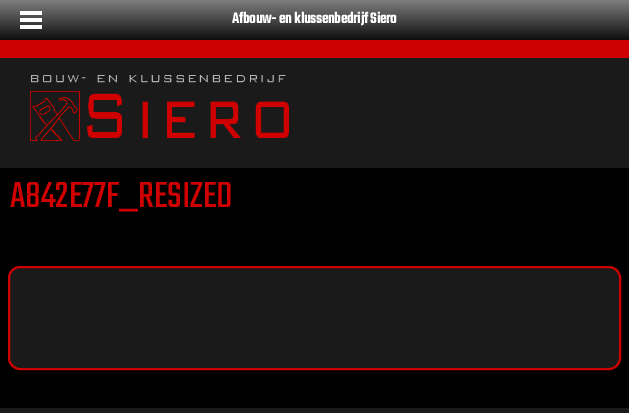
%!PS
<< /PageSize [629 413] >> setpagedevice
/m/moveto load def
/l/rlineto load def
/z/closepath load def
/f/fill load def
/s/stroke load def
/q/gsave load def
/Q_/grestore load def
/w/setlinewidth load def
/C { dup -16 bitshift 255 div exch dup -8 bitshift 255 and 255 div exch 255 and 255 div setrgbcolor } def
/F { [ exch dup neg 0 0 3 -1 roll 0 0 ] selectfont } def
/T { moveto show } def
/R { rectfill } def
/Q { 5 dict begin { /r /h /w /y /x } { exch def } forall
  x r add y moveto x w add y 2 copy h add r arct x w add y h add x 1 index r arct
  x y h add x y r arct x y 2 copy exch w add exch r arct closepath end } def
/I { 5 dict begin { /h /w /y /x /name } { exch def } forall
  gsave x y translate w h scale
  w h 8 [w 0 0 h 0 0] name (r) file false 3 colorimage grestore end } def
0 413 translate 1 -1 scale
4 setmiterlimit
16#000000 C
0 0 629 413 R
q 0 0 m 629 0 l 0 40 l -629 0 l z clip newpath
<< /ShadingType 2 /ColorSpace /DeviceRGB /Coords [315 0 315 40] /Extend [true true] /Function << /FunctionType 2 /Domain [0 1] /C0 [.49 .494 .49] /C1 [.055 .055 .055] /N 1 >> >> shfill Q_
(1.rgb) 20 11 22 18 I
/Teko-Bold 16 F
16#FFFFFF C
(Afbouw- en klussenbedrijf Siero) 232 23 T
16#1A1A1A C
0 58 629 110 R
16#CF0001 C
0 40 629 18 R
(2.rgb) 30 75 259 66 I
/Teko-Regular 40 F
(A842E77F_RESIZED) 10 207 T
16#1A1A1A C
9 267 611 102 11 Q q f Q_
16#CF0001 C
2 w
s
16#1A1A1A C
0 408 629 5 R
showpage
